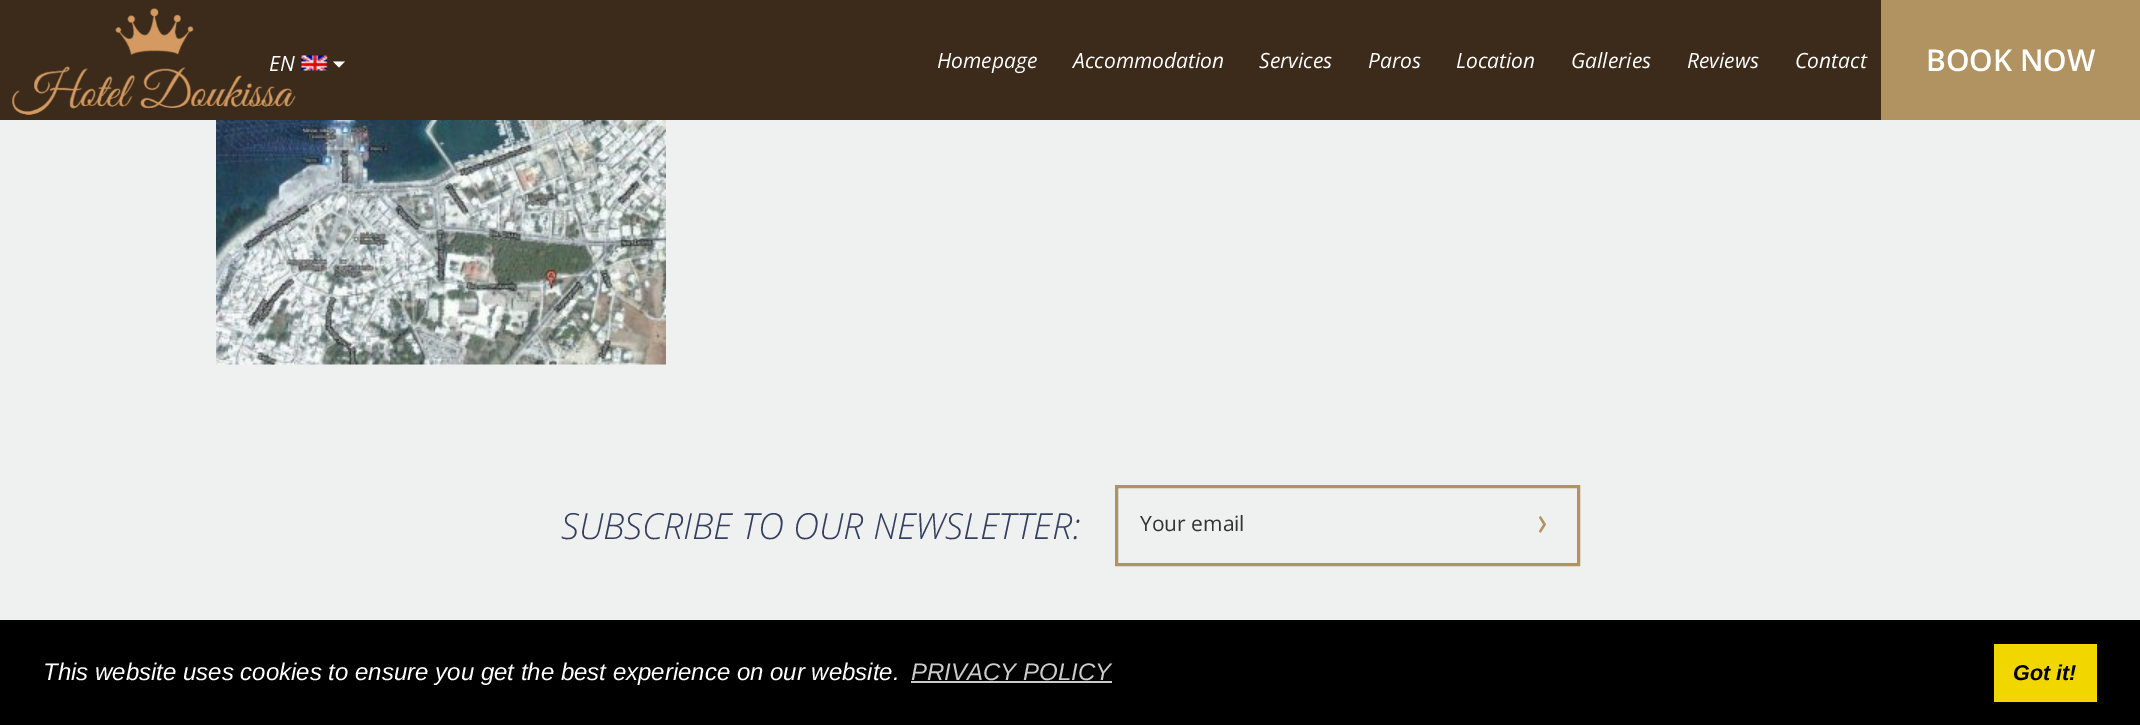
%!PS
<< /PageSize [2140 725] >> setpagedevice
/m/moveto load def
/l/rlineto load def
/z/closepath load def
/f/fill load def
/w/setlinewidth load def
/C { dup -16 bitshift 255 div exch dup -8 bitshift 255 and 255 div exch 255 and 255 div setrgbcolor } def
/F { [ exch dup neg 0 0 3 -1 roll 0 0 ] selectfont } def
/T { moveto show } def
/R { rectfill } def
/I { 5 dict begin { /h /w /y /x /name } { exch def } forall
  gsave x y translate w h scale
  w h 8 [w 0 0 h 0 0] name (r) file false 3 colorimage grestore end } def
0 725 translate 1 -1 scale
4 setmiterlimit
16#EFF0F0 C
0 0 2140 725 R
16#3C2B1B C
0 0 1881 120 R
(1.rgb) 12 8 284 107 I
/OpenSans-Italic 21 F
16#FFFFFF C
(Homepage) 937 68 T
(Accommodation) 1073 68 T
(Services) 1259 68 T
(Paros) 1368 68 T
(Location) 1456 68 T
(Galleries) 1571 68 T
(Reviews) 1687 68 T
(Contact) 1795 68 T
16#B19261 C
1881 0 259 120 R
/OpenSans-SemiBold 30 F
16#FFFFFF C
(BOOK NOW) 1926 71 T
/OpenSans-Italic 21 F
(EN) 269 71 T
(2.rgb) 301 55 27 16 I
333 61.5 m 12 0 l -6 6 l z f
(3.rgb) 216 120 450 245 I
/OpenSans-LightItalic 36 F
16#343E5E C
(SUBSCRIBE TO OUR NEWSLETTER:) 561 539 T
16#B19261 C
3 w
1116.5 486.5 462 78 rectstroke
/OpenSans-Regular 21 F
16#333333 C
(Your email) 1140 531 T
(4.rgb) 1539 516 7 17 I
16#000000 C
0 620 2140 105 R
/LiberationSans-Italic 24 F
16#FFFFFF C
(This website uses cookies to ensure you get the best experience on our website.) 43 680 T
16#CCCCCC C
(PRIVACY POLICY) 911 680 T
911 681 201 2 R
16#F1D600 C
1994 644 103 58 R
/LiberationSans-BoldItalic 21.5 F
16#000000 C
(Got it!) 2013 680 T
showpage
